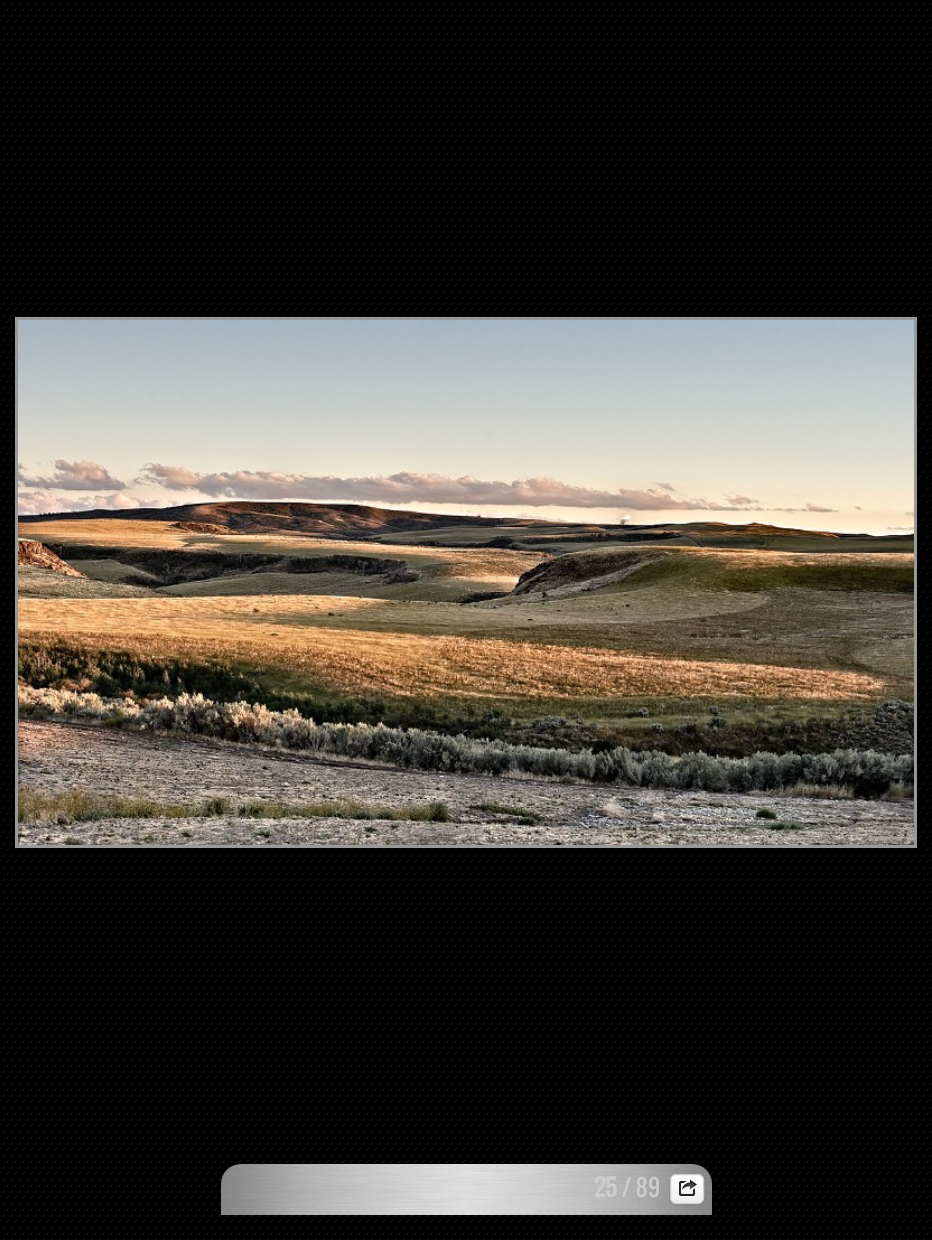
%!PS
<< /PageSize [932 1240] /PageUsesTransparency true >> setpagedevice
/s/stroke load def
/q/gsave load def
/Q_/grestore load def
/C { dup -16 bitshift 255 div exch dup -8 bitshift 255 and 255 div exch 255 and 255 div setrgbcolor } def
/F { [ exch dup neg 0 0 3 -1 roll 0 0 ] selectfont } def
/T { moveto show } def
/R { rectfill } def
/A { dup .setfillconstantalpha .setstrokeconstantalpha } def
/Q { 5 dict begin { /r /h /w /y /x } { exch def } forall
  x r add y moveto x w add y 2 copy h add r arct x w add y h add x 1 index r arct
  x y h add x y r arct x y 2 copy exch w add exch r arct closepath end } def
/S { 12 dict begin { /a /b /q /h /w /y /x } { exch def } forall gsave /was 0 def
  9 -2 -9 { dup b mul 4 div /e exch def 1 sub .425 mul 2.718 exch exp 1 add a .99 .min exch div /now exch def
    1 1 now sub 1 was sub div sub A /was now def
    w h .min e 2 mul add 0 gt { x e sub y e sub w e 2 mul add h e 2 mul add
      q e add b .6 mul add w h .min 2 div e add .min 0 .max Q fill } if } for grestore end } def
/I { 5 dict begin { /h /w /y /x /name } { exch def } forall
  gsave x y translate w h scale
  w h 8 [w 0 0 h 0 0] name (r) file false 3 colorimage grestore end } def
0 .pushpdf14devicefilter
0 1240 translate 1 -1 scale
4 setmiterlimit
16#FFFFFF C
0 0 932 1240 R
(1.rgb) 0 0 932 1240 I
16#000000 C
18 323 902 531 0 16 .6 S
16#999999 C
15 317 902 531 R
(2.rgb) 18 320 896 525 I
q
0 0 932 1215 rectclip
16#000000 C
222 1167 491 51 20 4 .6 S
Q_
(3.rgb) 221 1164 491 51 I
/Oswald-Bold 23 F
16#CCCCCC C
(25) 594 1197 T
/Oswald-Regular 23 F
(/ 89) 622 1197 T
16#000000 C
670 1175 34 30 6 1 .2 S
q 671 1175 32 28 5 Q clip newpath
<< /ShadingType 2 /ColorSpace /DeviceRGB /Coords [687 1175 687 1203] /Extend [true true] /Function << /FunctionType 2 /Domain [0 1] /C0 [1 1 1] /C1 [.933 .933 .933] /N 1 >> >> shfill Q_
16#CCCCCC C
670.5 1174.5 33 29 5.5 Q s
(4.rgb) 679 1179 18 17 I
.poppdf14devicefilter showpage
